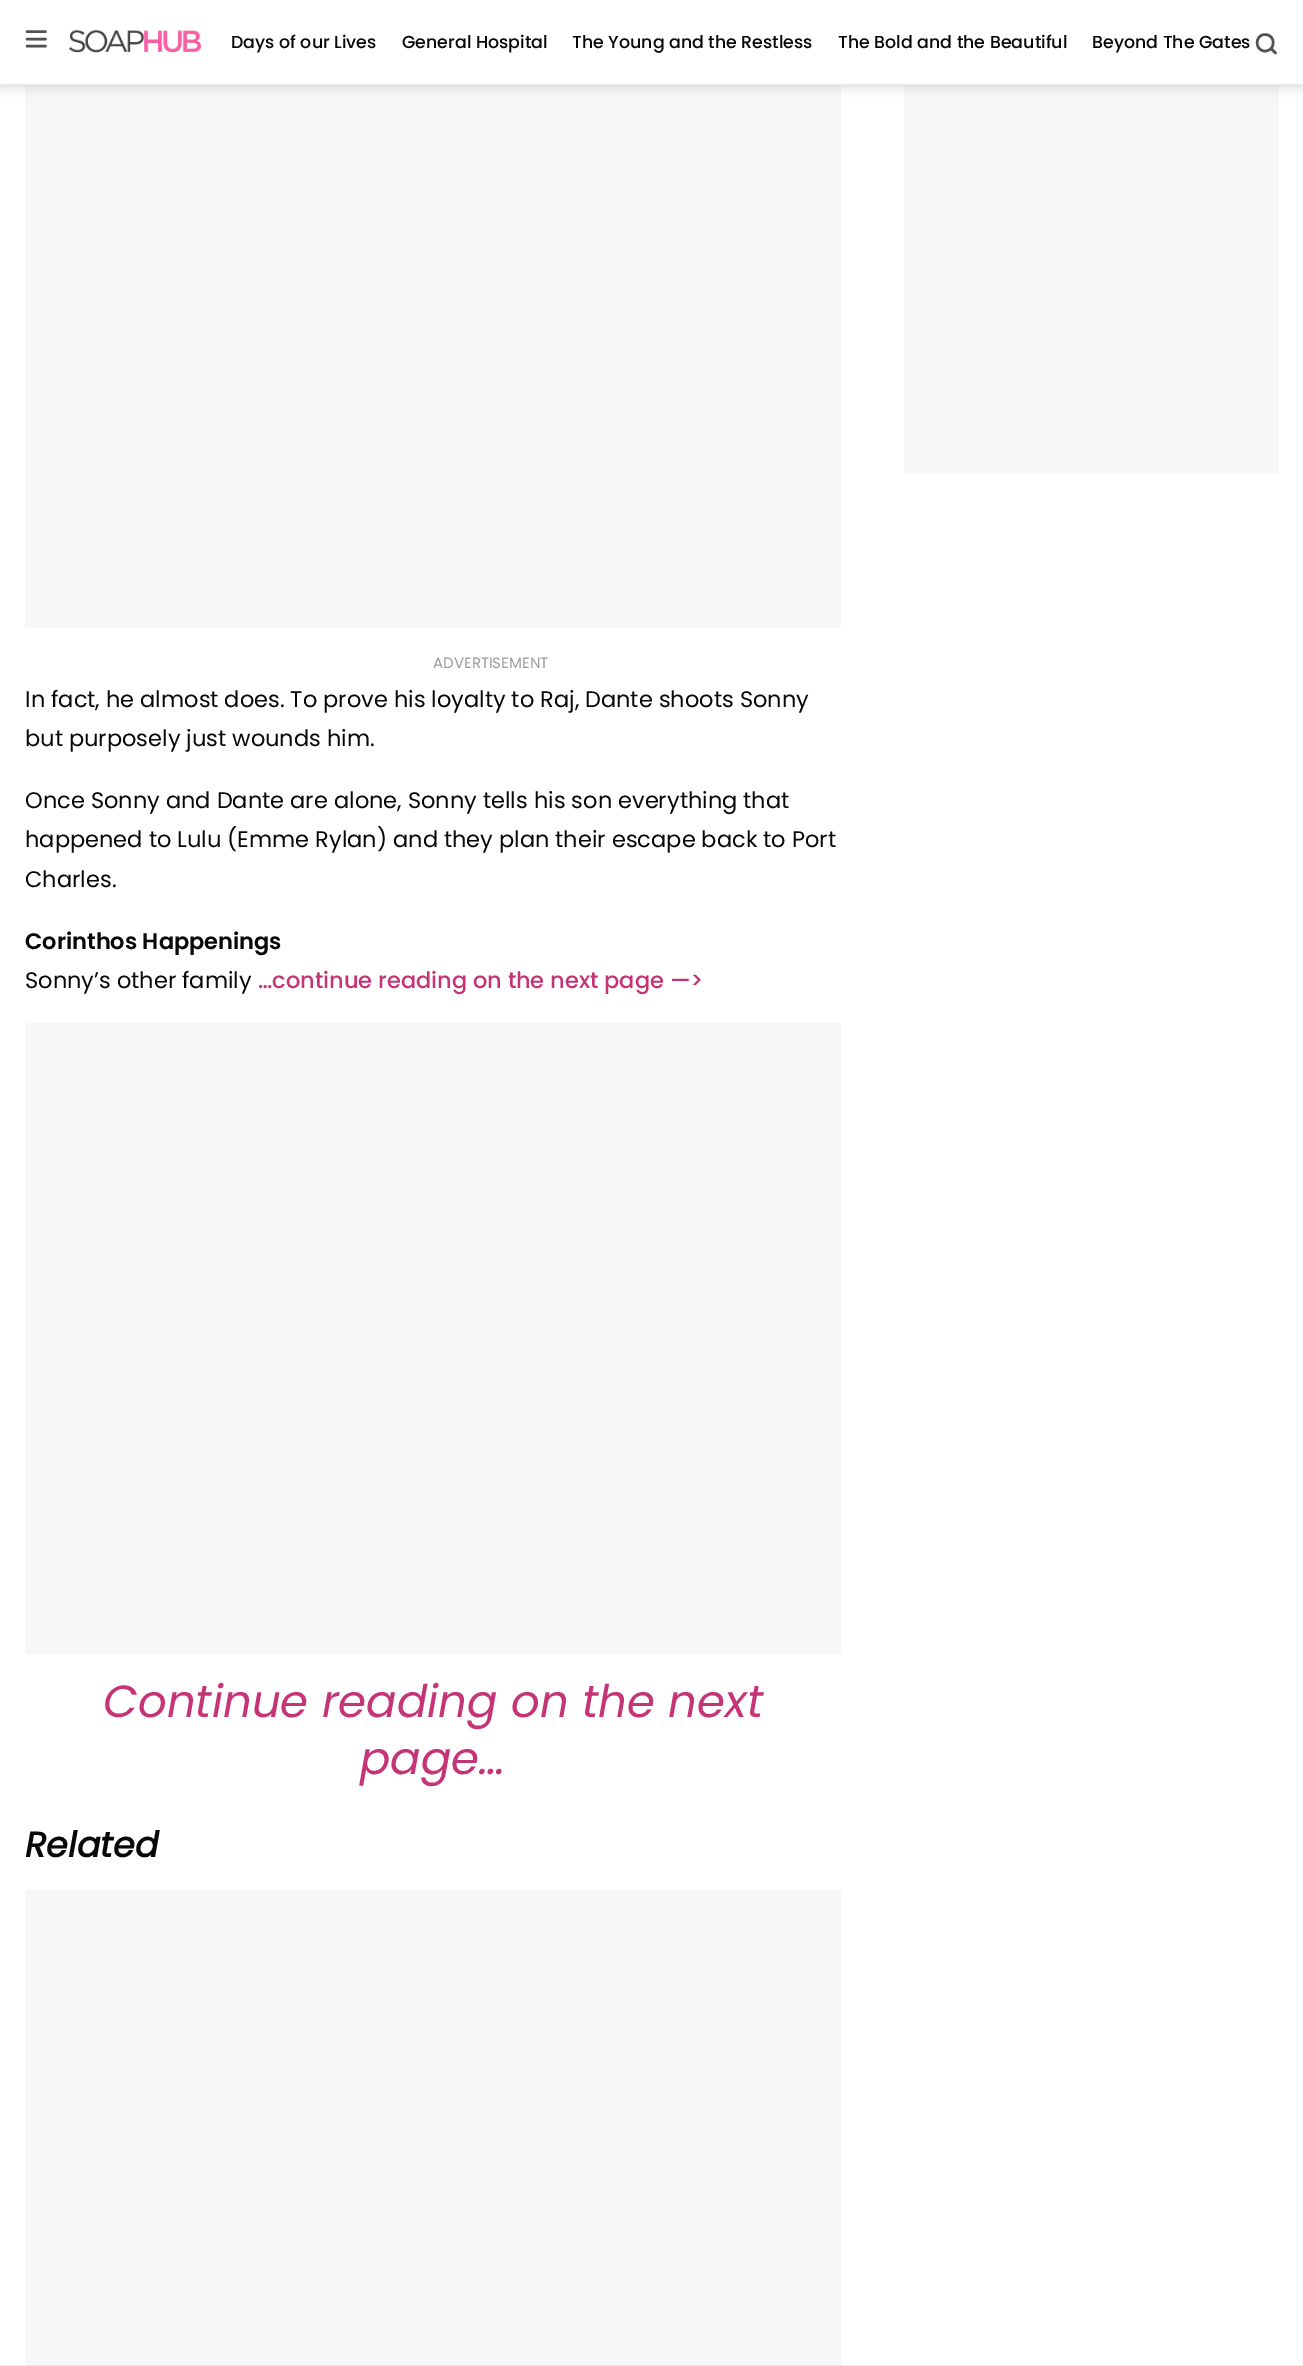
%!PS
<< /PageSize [1303 2366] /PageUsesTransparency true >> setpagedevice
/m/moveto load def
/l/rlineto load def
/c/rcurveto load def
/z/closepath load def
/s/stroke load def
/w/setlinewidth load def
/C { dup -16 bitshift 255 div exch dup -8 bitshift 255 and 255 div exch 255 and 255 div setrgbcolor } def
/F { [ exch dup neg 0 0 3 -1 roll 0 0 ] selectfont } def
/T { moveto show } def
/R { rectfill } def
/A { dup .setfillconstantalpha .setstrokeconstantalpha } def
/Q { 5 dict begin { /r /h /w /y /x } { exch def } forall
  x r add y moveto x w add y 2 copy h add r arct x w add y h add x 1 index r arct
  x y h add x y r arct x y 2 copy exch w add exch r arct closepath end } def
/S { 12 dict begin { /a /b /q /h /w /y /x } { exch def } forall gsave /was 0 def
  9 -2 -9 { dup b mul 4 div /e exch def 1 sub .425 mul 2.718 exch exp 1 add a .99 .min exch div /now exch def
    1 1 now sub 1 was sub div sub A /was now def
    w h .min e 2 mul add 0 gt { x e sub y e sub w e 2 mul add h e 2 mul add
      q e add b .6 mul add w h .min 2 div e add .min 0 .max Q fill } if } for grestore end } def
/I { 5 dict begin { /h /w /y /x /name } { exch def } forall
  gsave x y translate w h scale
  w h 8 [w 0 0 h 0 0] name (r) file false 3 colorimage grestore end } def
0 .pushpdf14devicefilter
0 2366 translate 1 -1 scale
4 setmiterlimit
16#FFFFFF C
0 0 1303 2366 R
16#F7F7F7 C
904 85 375 389 R
25 85 816 543 R
16#000000 C
0 -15 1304 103 0 5 .12 S
16#FFFFFF C
0 0 1303 84 R
16#EBEBEB C
0 84 1303 1 R
(1.rgb) 69 29 132 24 I
16#525252 C
2.5 w
1 setlinecap
1 setlinejoin
27 39 m 18.5 0 l 27 31.5 m 18.5 0 l 27 46 m 18.5 0 l s
/Poppins-Medium 17.4 F
16#080808 C
(Days of our Lives) 231 48 T
(General Hospital) 402 48 T
(The Young and the Restless) 572 48 T
(The Bold and the Beautiful) 838 48 T
(Beyond The Gates) 1092 48 T
16#525252 C
1265 51 m 11 0 11 -16.5 0 -16.5 c -10.5 0 -10.5 16.5 0 16.5 c z 1275.5 53 m -4.5 -4.5 l s
/Poppins-Regular 15 F
16#999999 C
(ADVERTISEMENT) 433 668 T
/Poppins-Regular 22.5 F
16#080808 C
(In fact, he almost does. To prove his loyalty to Raj, Dante shoots Sonny) 25 707 T
(but purposely just wounds him.) 25 746 T
(Once Sonny and Dante are alone, Sonny tells his son everything that) 25 808 T
(happened to Lulu \(Emme Rylan\) and they plan their escape back to Port) 25 847 T
(Charles.) 25 887 T
/Poppins-SemiBold 22.5 F
(Corinthos Happenings) 25 949 T
/Poppins-Regular 22.5 F
(Sonny’s other family) 25 988 T
/Poppins-Medium 22.5 F
16#C53476 C
(…continue reading on the next page —>) 258 988 T
16#F7F7F7 C
25 1023 816 631 R
/Poppins-Italic 45 F
16#C53476 C
(Continue reading on the next) 103 1717 T
(page…) 360 1774 T
/Poppins-BoldItalic 35 F
16#080808 C
(Related) 25 1857 T
16#F7F7F7 C
25 1890 816 475 R
16#EAEAEA C
0 2365 1303 1 R
.poppdf14devicefilter showpage
